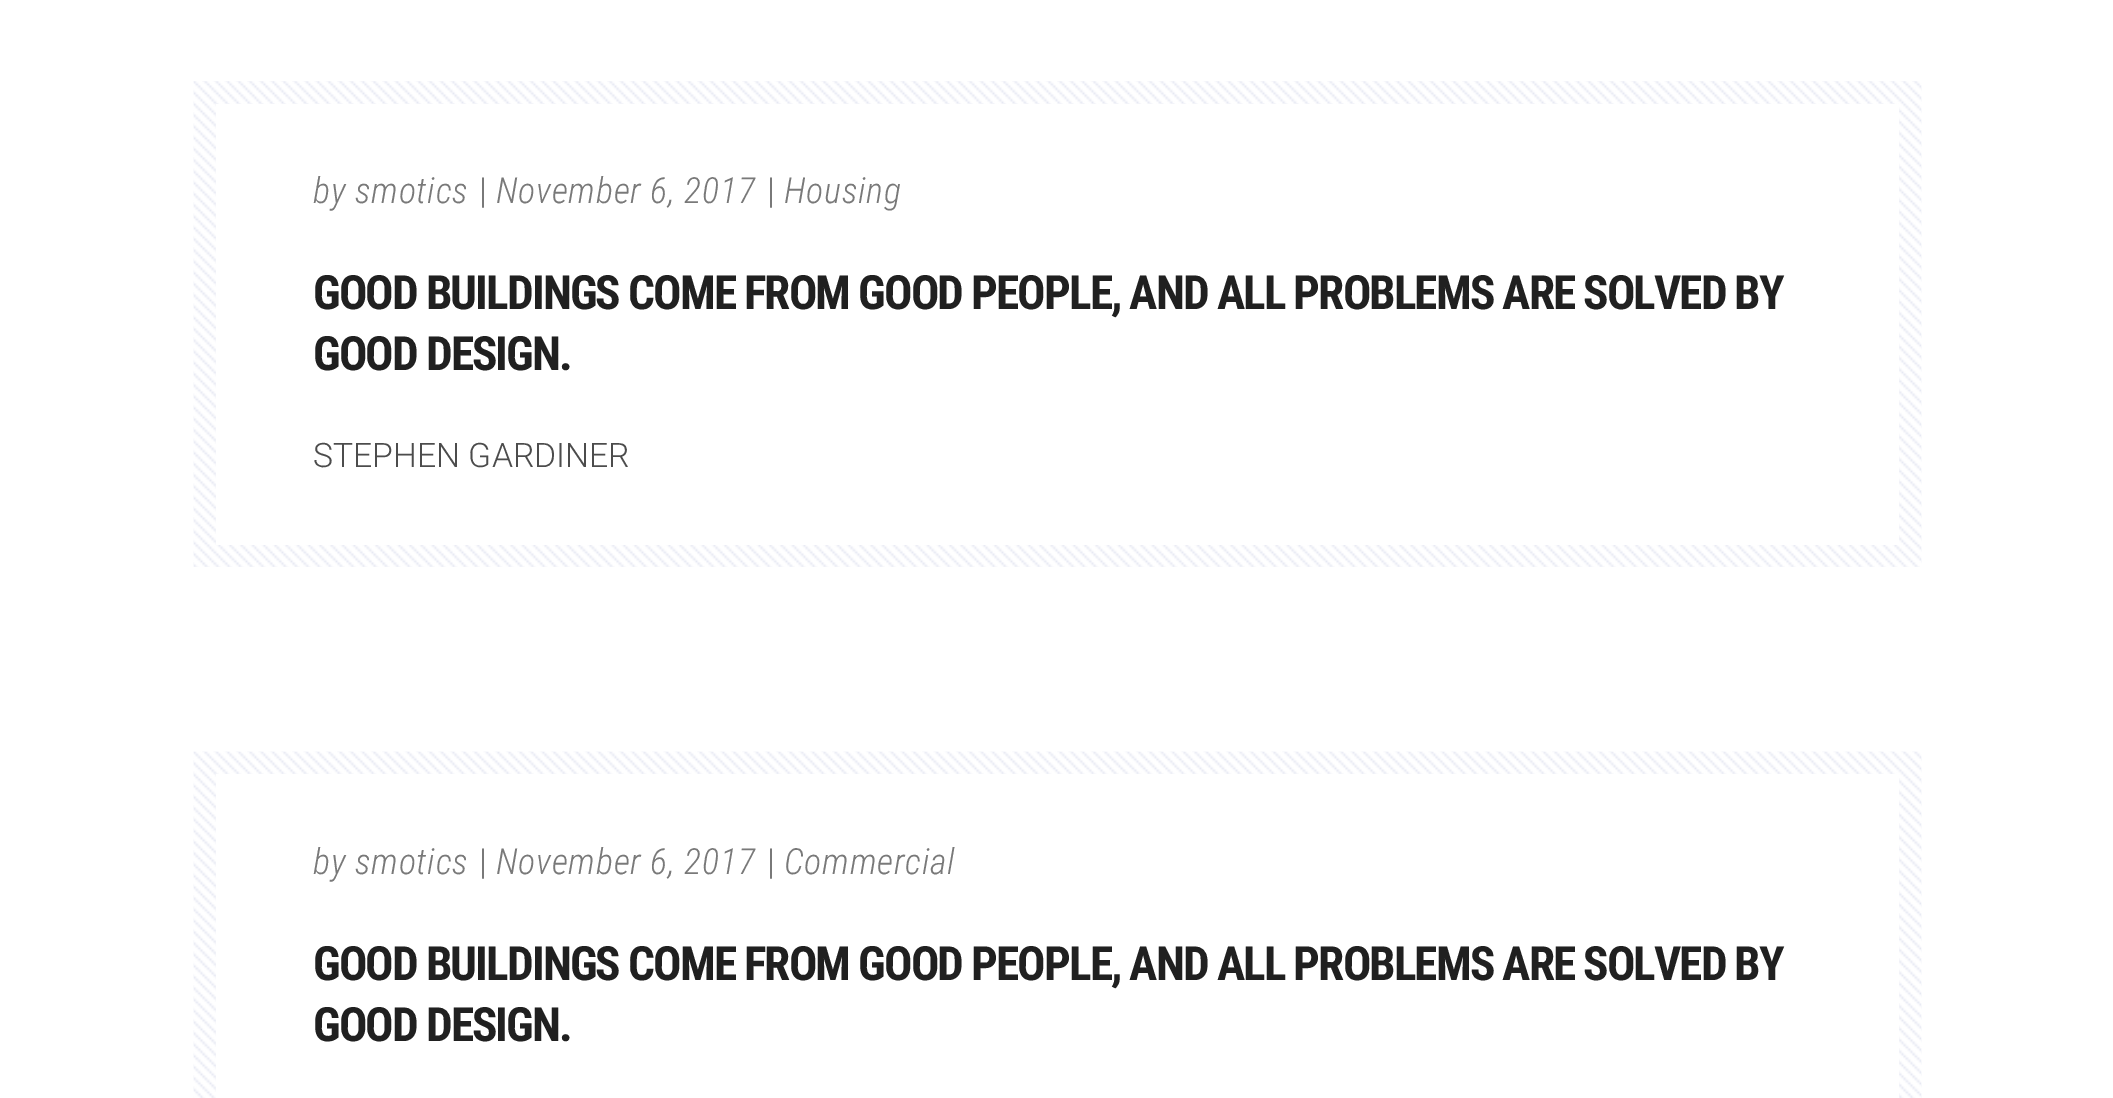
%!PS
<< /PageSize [2113 1098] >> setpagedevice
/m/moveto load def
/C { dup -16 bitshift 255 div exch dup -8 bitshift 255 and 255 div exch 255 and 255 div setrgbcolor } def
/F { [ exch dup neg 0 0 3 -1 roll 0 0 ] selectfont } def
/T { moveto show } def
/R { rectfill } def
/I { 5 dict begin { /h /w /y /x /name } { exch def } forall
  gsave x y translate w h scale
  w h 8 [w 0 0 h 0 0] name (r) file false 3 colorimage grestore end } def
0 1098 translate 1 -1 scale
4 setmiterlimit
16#FFFFFF C
0 0 2113 1098 R
(1.rgb) 193 81 1729 486 I
216 104 1683 441 R
/RobotoCondensed-LightItalic 36 F
16#797979 C
313 203 m .75 0 (by smotics) ashow
/RobotoCondensed-Light 36 F
479 203 m .75 0 (|) ashow
/RobotoCondensed-LightItalic 36 F
496 203 m .75 0 (November 6, 2017) ashow
/RobotoCondensed-Light 36 F
767 203 m .75 0 (|) ashow
/RobotoCondensed-LightItalic 36 F
784 203 m .75 0 (Housing) ashow
/RobotoCondensed-Bold 47.25 F
16#202020 C
313 309 m -1.9 0 (GOOD BUILDINGS COME FROM GOOD PEOPLE, AND ALL PROBLEMS ARE SOLVED BY) ashow
313 370 m -1.9 0 (GOOD DESIGN.) ashow
/Roboto-Light 33.75 F
16#4C4C4C C
(STEPHEN GARDINER) 313 467 T
(2.rgb) 193 751 1729 347 I
16#FFFFFF C
216 774 1683 324 R
/RobotoCondensed-LightItalic 36 F
16#797979 C
313 874 m .75 0 (by smotics) ashow
/RobotoCondensed-Light 36 F
479 874 m .75 0 (|) ashow
/RobotoCondensed-LightItalic 36 F
496 874 m .75 0 (November 6, 2017) ashow
/RobotoCondensed-Light 36 F
767 874 m .75 0 (|) ashow
/RobotoCondensed-LightItalic 36 F
784 874 m .75 0 (Commercial) ashow
/RobotoCondensed-Bold 47.25 F
16#202020 C
313 980 m -1.9 0 (GOOD BUILDINGS COME FROM GOOD PEOPLE, AND ALL PROBLEMS ARE SOLVED BY) ashow
313 1041 m -1.9 0 (GOOD DESIGN.) ashow
showpage
